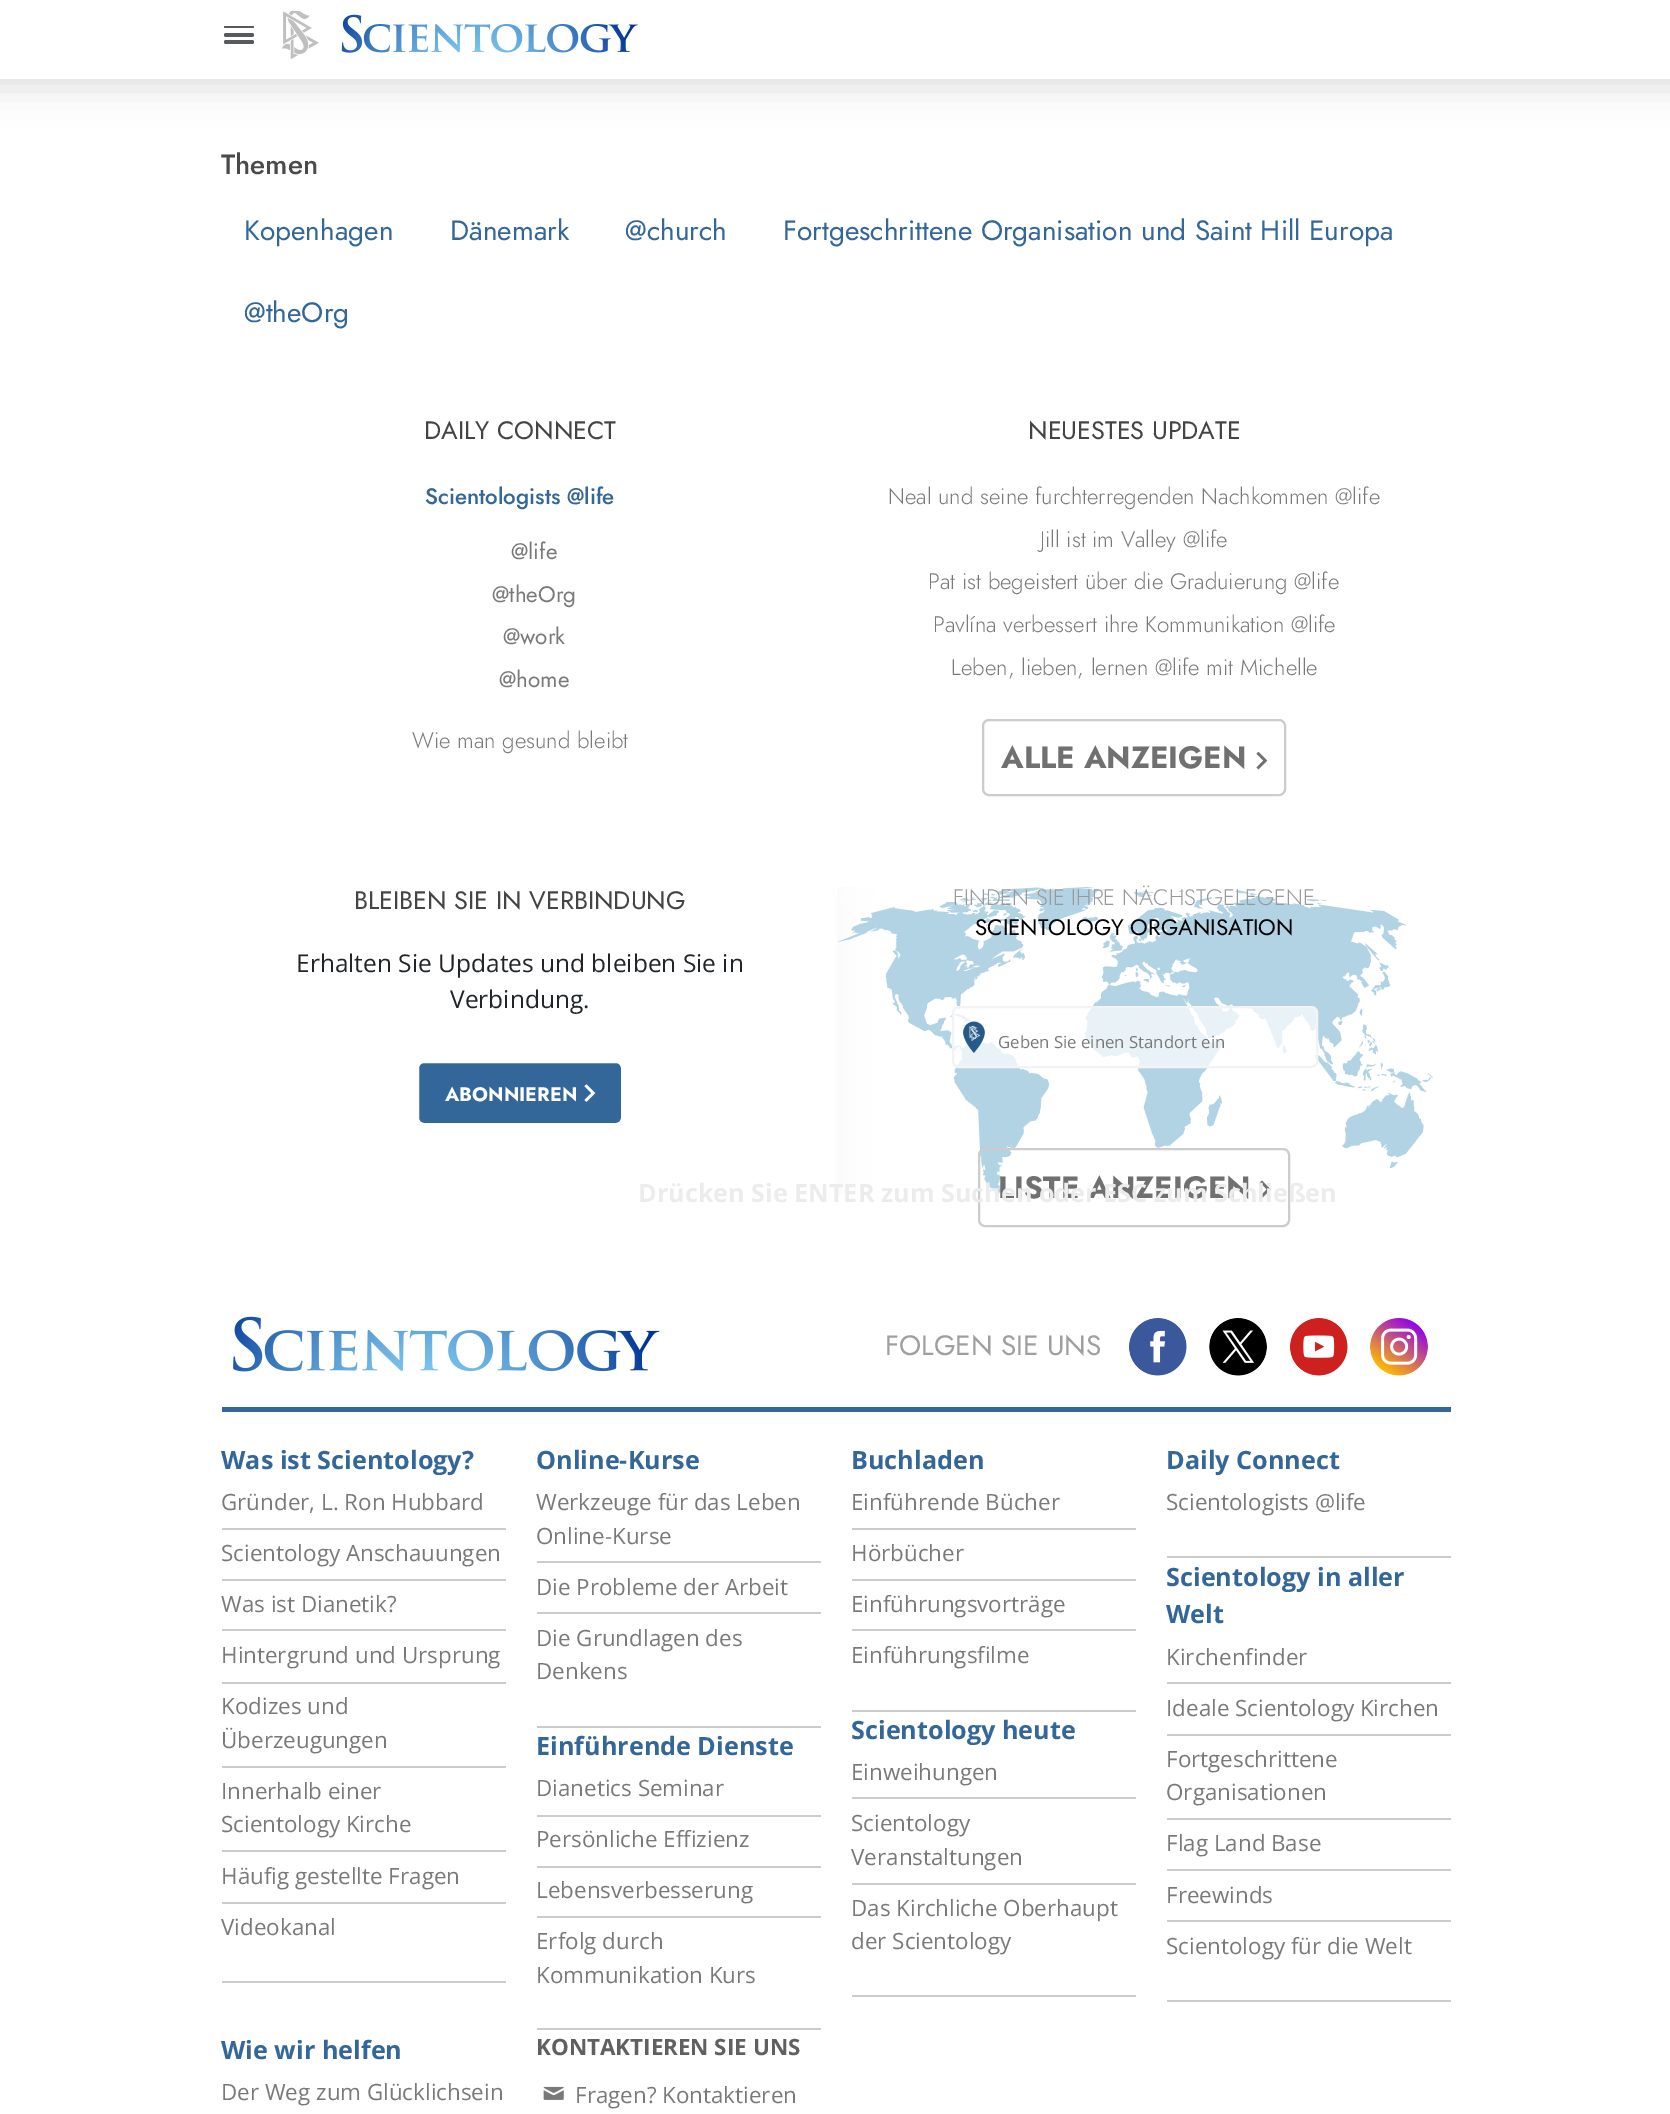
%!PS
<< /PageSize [1670 2114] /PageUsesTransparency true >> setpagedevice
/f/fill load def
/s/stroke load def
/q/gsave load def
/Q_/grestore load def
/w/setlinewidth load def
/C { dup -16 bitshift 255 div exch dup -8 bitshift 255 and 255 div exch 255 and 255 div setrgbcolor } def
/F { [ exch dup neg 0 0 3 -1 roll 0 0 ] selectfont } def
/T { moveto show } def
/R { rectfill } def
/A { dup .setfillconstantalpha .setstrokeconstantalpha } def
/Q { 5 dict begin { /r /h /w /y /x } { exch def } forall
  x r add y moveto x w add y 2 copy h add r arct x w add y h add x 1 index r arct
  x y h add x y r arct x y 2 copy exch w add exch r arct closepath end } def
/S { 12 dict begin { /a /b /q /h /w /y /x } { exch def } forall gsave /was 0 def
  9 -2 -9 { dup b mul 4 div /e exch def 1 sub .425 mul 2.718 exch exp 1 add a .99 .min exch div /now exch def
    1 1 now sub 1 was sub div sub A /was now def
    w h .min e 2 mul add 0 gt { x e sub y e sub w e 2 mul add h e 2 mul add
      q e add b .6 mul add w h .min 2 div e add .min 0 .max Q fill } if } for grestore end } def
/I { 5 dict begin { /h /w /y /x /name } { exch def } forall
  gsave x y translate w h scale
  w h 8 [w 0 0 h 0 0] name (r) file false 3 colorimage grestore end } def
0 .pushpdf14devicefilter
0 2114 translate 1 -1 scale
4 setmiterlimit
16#FFFFFF C
0 0 1670 2114 R
16#949494 C
-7 -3 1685 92 0 17.5 .3 S
16#FFFFFF C
0 0 1670 79 R
16#575B5E C
224 26 30 2 1 Q f
224 33 30 4 2 Q f
224 40 30 4 2 Q f
(1.rgb) 282 11 37 48 I
(2.rgb) 341 14 297 39 I
/Jost-Medium 28 F
16#4A4A4A C
(Themen) 221 174 T
/Jost-Regular 28 F
16#336699 C
(Kopenhagen) 244 240 T
(Dänemark) 450 240 T
(@church) 625 240 T
(Fortgeschrittene Organisation und Saint Hill Europa) 783 240 T
(@theOrg) 244 322 T
/Jost-Regular 25.2 F
16#444444 C
(DAILY CONNECT) 424 439 T
/Jost-Medium 22.4 F
16#336699 C
(Scientologists @life) 425 504 T
/Jost-Regular 22.4 F
16#797979 C
(@life) 511 559 T
(@theOrg) 492 602 T
(@work) 503 644 T
(@home) 499 687 T
/Jost-Light 22.4 F
(Wie man gesund bleibt) 412 748 T
/Jost-Regular 25.2 F
16#444444 C
(NEUESTES UPDATE) 1028 439 T
/Jost-Light 22.4 F
16#797979 C
(Neal und seine furchterregenden Nachkommen @life) 888 504 T
(Jill ist im Valley @life) 1040 547 T
(Pat ist begeistert über die Graduierung @life) 928 589 T
(Pavlína verbessert ihre Kommunikation @life) 933 632 T
(Leben, lieben, lernen @life mit Michelle) 951 675 T
16#CCCCCC C
2 w
983 720 302 75 6 Q s
/Jost-Bold 30.75 F
16#707070 C
(ALLE ANZEIGEN) 1001 768 T
(3.rgb) 1256 751 12 19 I
/Jost-Regular 25.2 F
16#444444 C
(BLEIBEN SIE IN VERBINDUNG) 354 909 T
/OpenSans-Regular 24.5 F
16#212529 C
(Erhalten Sie Updates und bleiben Sie in) 296 972 T
(Verbindung.) 450 1008 T
16#336699 C
418 1062 204 62 6 Q q f Q_
16#FFFFFF C
s
/Jost-Bold 19.5 F
(ABONNIEREN) 445 1101 T
(4.rgb) 584 1084 12 18 I
(5.rgb) 837 887 596 308 I
/Jost-Light 22.4 F
16#999999 C
(FINDEN SIE IHRE NÄCHSTGELEGENE) 953 905 T
/Jost-Regular 22.4 F
16#000000 C
(SCIENTOLOGY ORGANISATION) 975 935 T
0.7 A
16#FFFFFF C
952 1006 366 62 7 Q f
1 A
(6.rgb) 963 1021 22 32 I
16#F3F3F3 C
953 1007 364 60 6 Q s
/OpenSans-Regular 16.75 F
16#797979 C
(Geben Sie einen Standort ein) 998 1048 T
16#CCCCCC C
979 1149 310 77 6 Q s
/Jost-Bold 30.75 F
16#707070 C
(LISTE ANZEIGEN) 998 1198 T
(7.rgb) 1260 1180 11 18 I
16#336699 C
222 1407 1229 5 R
(8.rgb) 233 1316 427 56 I
/Jost-Regular 28 F
16#9F9F9F C
(FOLGEN SIE UNS) 885 1355 T
(9.rgb) 1129 1318 58 58 I
(10.rgb) 1209 1318 58 58 I
(11.rgb) 1290 1318 58 58 I
(12.rgb) 1370 1318 58 58 I
16#CCCCCC C
222 1981 284 2 R
/OpenSans-Bold 25.2 F
16#336699 C
(Was ist Scientology?) 221 1469 T
16#CCCCCC C
222 1528 284 2 R
/OpenSans-Regular 22.4 F
16#797979 C
(Gründer, L. Ron Hubbard) 221 1510 T
16#CCCCCC C
222 1579 284 2 R
16#797979 C
(Scientology Anschauungen) 221 1561 T
16#CCCCCC C
222 1629 284 2 R
16#797979 C
(Was ist Dianetik?) 221 1612 T
16#CCCCCC C
222 1682 284 2 R
16#797979 C
(Hintergrund und Ursprung) 221 1663 T
16#CCCCCC C
222 1766 284 2 R
16#797979 C
(Kodizes und) 221 1714 T
(Überzeugungen) 221 1748 T
16#CCCCCC C
222 1850 284 2 R
16#797979 C
(Innerhalb einer) 221 1799 T
(Scientology Kirche) 221 1832 T
16#CCCCCC C
222 1902 284 2 R
16#797979 C
(Häufig gestellte Fragen) 221 1884 T
(Videokanal) 221 1935 T
16#CCCCCC C
537 1726 284 2 R
/OpenSans-Bold 25.2 F
16#336699 C
(Online-Kurse) 536 1469 T
16#CCCCCC C
537 1561 284 2 R
/OpenSans-Regular 22.4 F
16#797979 C
(Werkzeuge für das Leben) 536 1510 T
(Online-Kurse) 536 1544 T
16#CCCCCC C
537 1612 284 2 R
16#797979 C
(Die Probleme der Arbeit) 536 1595 T
(Die Grundlagen des) 536 1646 T
(Denkens) 536 1679 T
16#CCCCCC C
537 2028 284 2 R
/OpenSans-Bold 25.2 F
16#336699 C
(Einführende Dienste) 536 1755 T
16#CCCCCC C
537 1815 284 2 R
/OpenSans-Regular 22.4 F
16#797979 C
(Dianetics Seminar) 536 1796 T
16#CCCCCC C
537 1866 284 2 R
16#797979 C
(Persönliche Effizienz) 536 1847 T
16#CCCCCC C
537 1916 284 2 R
16#797979 C
(Lebensverbesserung) 536 1898 T
(Erfolg durch) 536 1949 T
(Kommunikation Kurs) 536 1983 T
16#CCCCCC C
852 1710 284 2 R
/OpenSans-Bold 25.2 F
16#336699 C
(Buchladen) 851 1469 T
16#CCCCCC C
852 1528 284 2 R
/OpenSans-Regular 22.4 F
16#797979 C
(Einführende Bücher) 851 1510 T
16#CCCCCC C
852 1579 284 2 R
16#797979 C
(Hörbücher) 851 1561 T
16#CCCCCC C
852 1629 284 2 R
16#797979 C
(Einführungsvorträge) 851 1612 T
(Einführungsfilme) 851 1663 T
16#CCCCCC C
852 1995 284 2 R
/OpenSans-Bold 25.2 F
16#336699 C
(Scientology heute) 851 1739 T
16#CCCCCC C
852 1797 284 2 R
/OpenSans-Regular 22.4 F
16#797979 C
(Einweihungen) 851 1780 T
16#CCCCCC C
852 1883 284 2 R
16#797979 C
(Scientology) 851 1831 T
(Veranstaltungen) 851 1865 T
(Das Kirchliche Oberhaupt) 851 1916 T
(der Scientology) 851 1949 T
16#CCCCCC C
1167 1556 284 2 R
/OpenSans-Bold 25.2 F
16#336699 C
(Daily Connect) 1166 1469 T
/OpenSans-Regular 22.4 F
16#797979 C
(Scientologists @life) 1166 1510 T
16#CCCCCC C
1167 2000 284 2 R
/OpenSans-Bold 25.2 F
16#336699 C
(Scientology in aller) 1166 1586 T
(Welt) 1166 1623 T
16#CCCCCC C
1167 1682 284 2 R
/OpenSans-Regular 22.4 F
16#797979 C
(Kirchenfinder) 1166 1665 T
16#CCCCCC C
1167 1734 284 2 R
16#797979 C
(Ideale Scientology Kirchen) 1166 1716 T
16#CCCCCC C
1167 1818 284 2 R
16#797979 C
(Fortgeschrittene) 1166 1767 T
(Organisationen) 1166 1800 T
16#CCCCCC C
1167 1869 284 2 R
16#797979 C
(Flag Land Base) 1166 1851 T
16#CCCCCC C
1167 1920 284 2 R
16#797979 C
(Freewinds) 1166 1903 T
(Scientology für die Welt) 1166 1954 T
/OpenSans-Bold 25.2 F
16#336699 C
(Wie wir helfen) 221 2059 T
/OpenSans-Regular 22.4 F
16#797979 C
(Der Weg zum Glücklichsein) 221 2100 T
/OpenSans-Bold 22.4 F
16#606060 C
(KONTAKTIEREN SIE UNS) 536 2055 T
(13.rgb) 543 2086 21 14 I
/OpenSans-Regular 22.4 F
16#797979 C
(Fragen? Kontaktieren) 575 2103 T
/OpenSans-Bold 25.2 F
16#ECECEC C
(Drücken Sie ENTER zum Suchen oder ESC zum Schließen) 638 1202 T
.poppdf14devicefilter showpage
